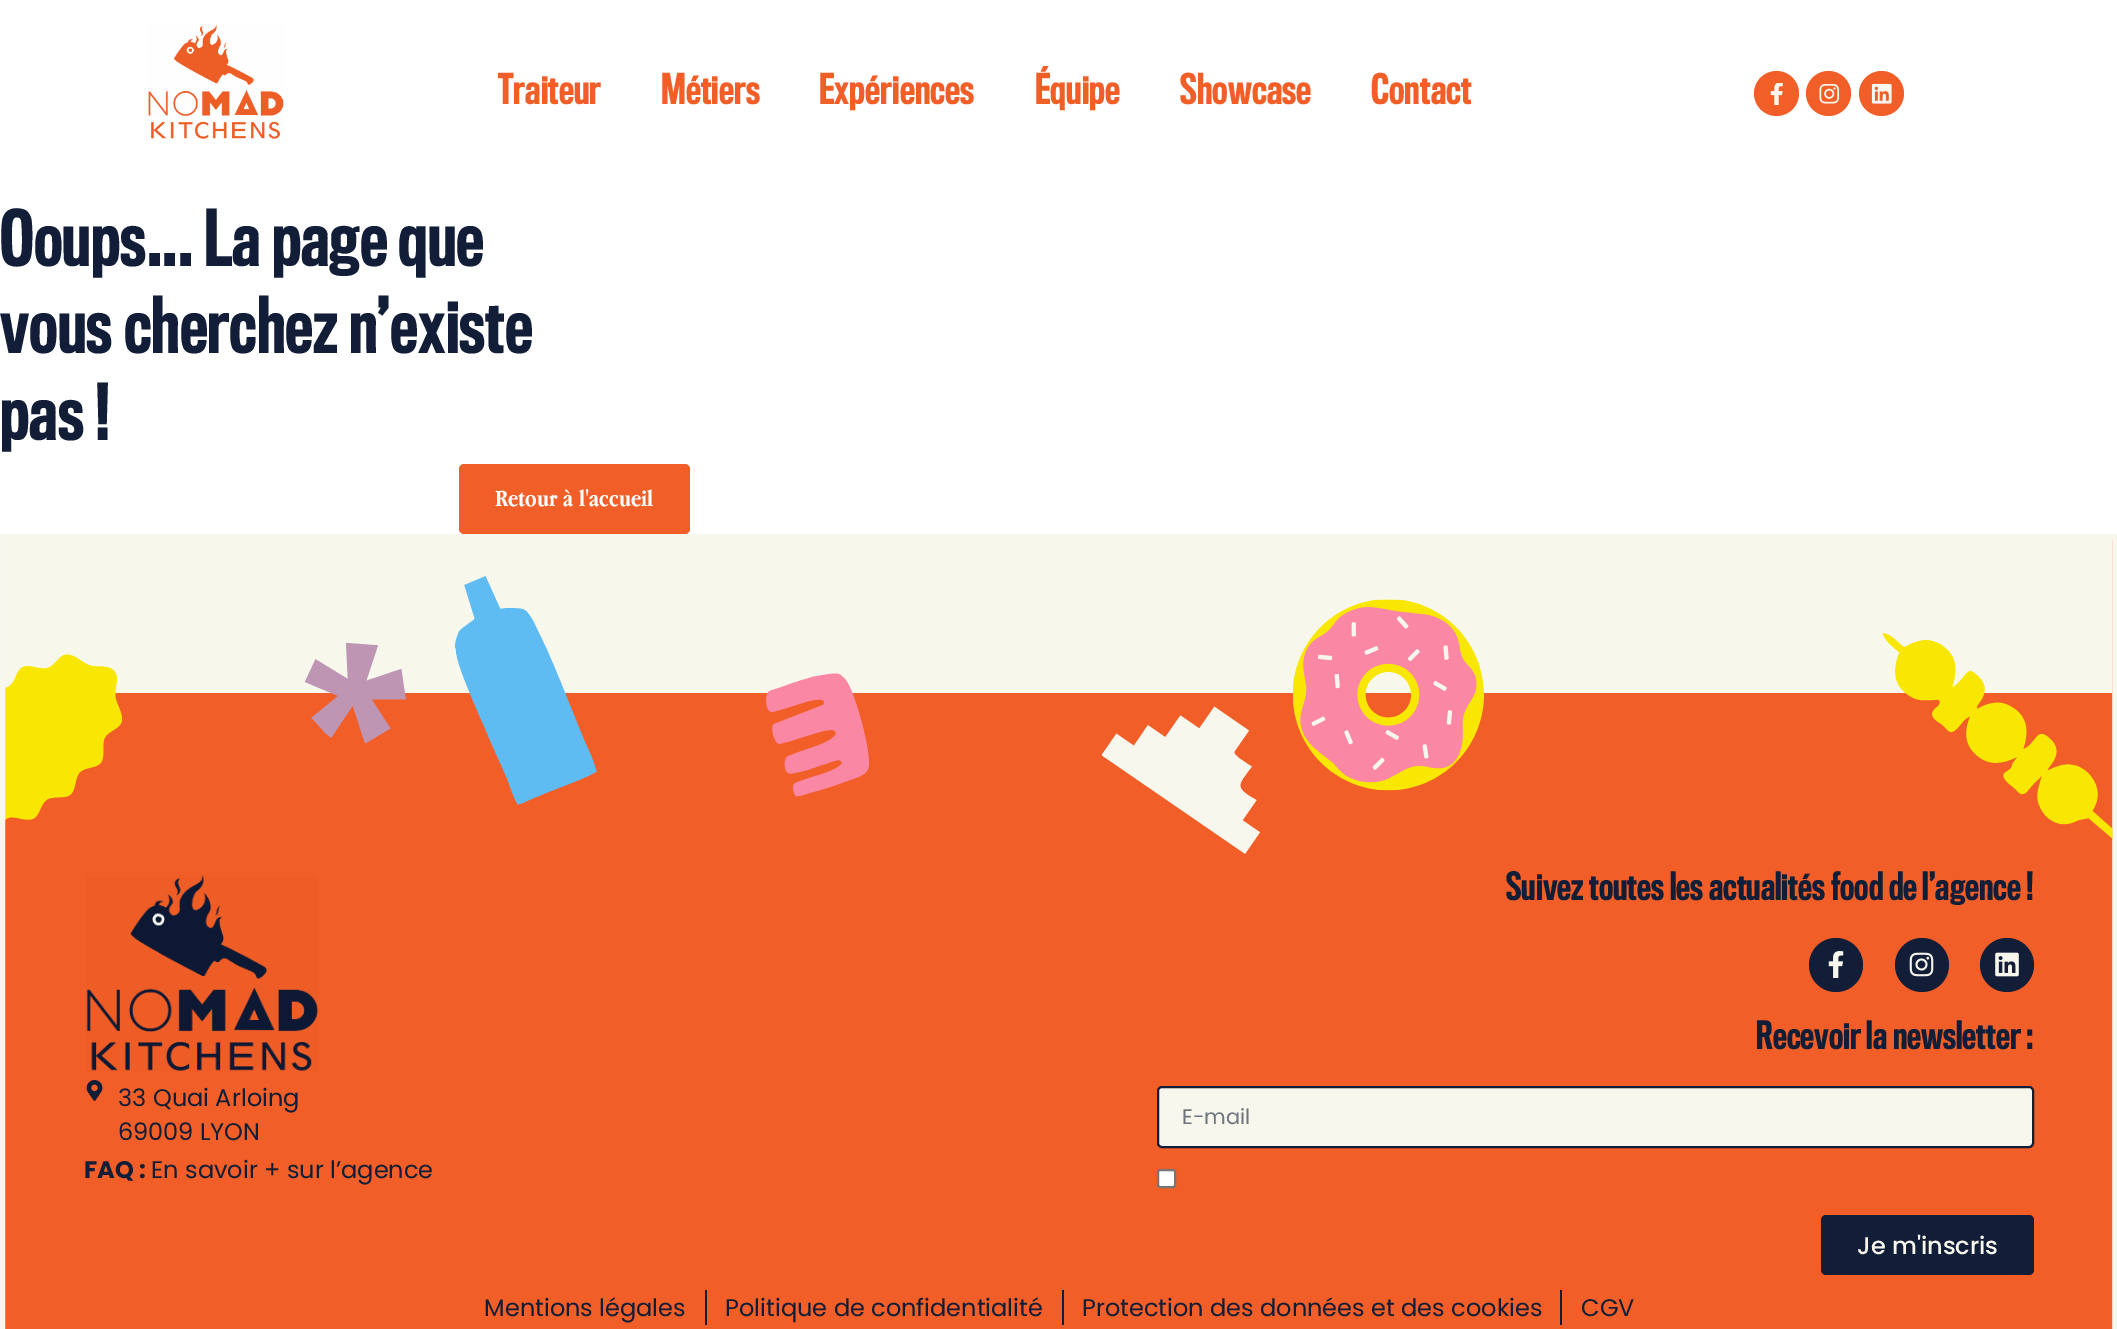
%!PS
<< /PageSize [2117 1329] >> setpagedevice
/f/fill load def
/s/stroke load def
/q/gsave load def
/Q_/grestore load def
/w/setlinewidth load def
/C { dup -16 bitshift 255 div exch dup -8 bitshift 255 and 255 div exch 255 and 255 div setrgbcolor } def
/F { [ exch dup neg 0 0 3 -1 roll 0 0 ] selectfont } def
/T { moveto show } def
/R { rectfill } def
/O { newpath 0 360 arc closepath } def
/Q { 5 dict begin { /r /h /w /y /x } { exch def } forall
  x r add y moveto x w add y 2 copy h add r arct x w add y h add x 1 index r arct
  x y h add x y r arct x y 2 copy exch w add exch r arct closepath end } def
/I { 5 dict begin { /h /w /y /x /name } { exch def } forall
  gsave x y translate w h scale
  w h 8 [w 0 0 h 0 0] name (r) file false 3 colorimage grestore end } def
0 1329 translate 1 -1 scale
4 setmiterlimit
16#FFFFFF C
0 0 2117 1329 R
(1.rgb) 148 24 136 115 I
/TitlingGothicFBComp-Medium 39 F
16#F15E27 C
(Traiteur) 498 104 T
(Métiers) 661 104 T
(Expériences) 819 104 T
(Équipe) 1035 104 T
(Showcase) 1180 104 T
(Contact) 1371 104 T
1776.5 93.5 22.5 O f
(2.rgb) 1770 83 13 22 I
1828.5 93.5 22.5 O f
(3.rgb) 1819 84 21 20 I
1881.5 93.5 22.5 O f
(4.rgb) 1871 83 21 21 I
/TitlingGothicFBComp-Medium 72 F
16#121E37 C
(Ooups... La page que) 0 266 T
(vous cherchez n’existe) 0 353 T
(pas !) 0 440 T
16#F15E27 C
459 464 231 70 5 Q f
/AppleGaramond-Bold 24 F
16#FFFFFF C
(Retour à l'accueil) 495 506 T
16#F7F7ED C
2112 539 1 790 R
(5.rgb) 5 539 2108 790 I
5 w
2.5 536.5 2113 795 rectstroke
(6.rgb) 86 874 232 197 I
(7.rgb) 86 1080 17 21 I
/Poppins-Regular 24 F
16#121E37 C
(33 Quai Arloing) 118 1106 T
(69009 LYON) 118 1140 T
/Poppins-Bold 24 F
(FAQ :) 84 1178 T
/Poppins-Regular 24 F
(En savoir + sur l’agence) 151 1178 T
/TitlingGothicFBComp-Medium 36 F
(Suivez toutes les actualités food de l’agence !) 1506 900 T
1836 965 27 O f
(8.rgb) 1828 951 16 27 I
1922 965 27 O f
(9.rgb) 1909 952 25 25 I
2007 965 27 O f
(10.rgb) 1995 952 24 25 I
(Recevoir la newsletter :) 1756 1049 T
16#F7F7ED C
1158 1087 875 60 4 Q q f Q_
16#121E37 C
2 w
s
/Poppins-Regular 21 F
16#6E7580 C
(E-mail) 1182 1124 T
16#FFFFFF C
1158 1170 17 17 2 Q q f Q_
16#767676 C
s
16#121E37 C
1821 1215 213 60 5 Q f
/Poppins-Medium 24 F
16#F7F7ED C
(Je m'inscris) 1857 1254 T
/Poppins-Regular 24 F
16#121E37 C
(Mentions légales) 484 1316 T
705 1290 2 35 R
(Politique de confidentialité) 725 1316 T
1062 1290 2 35 R
(Protection des données et des cookies) 1082 1316 T
1560 1290 2 35 R
(CGV) 1581 1316 T
showpage
